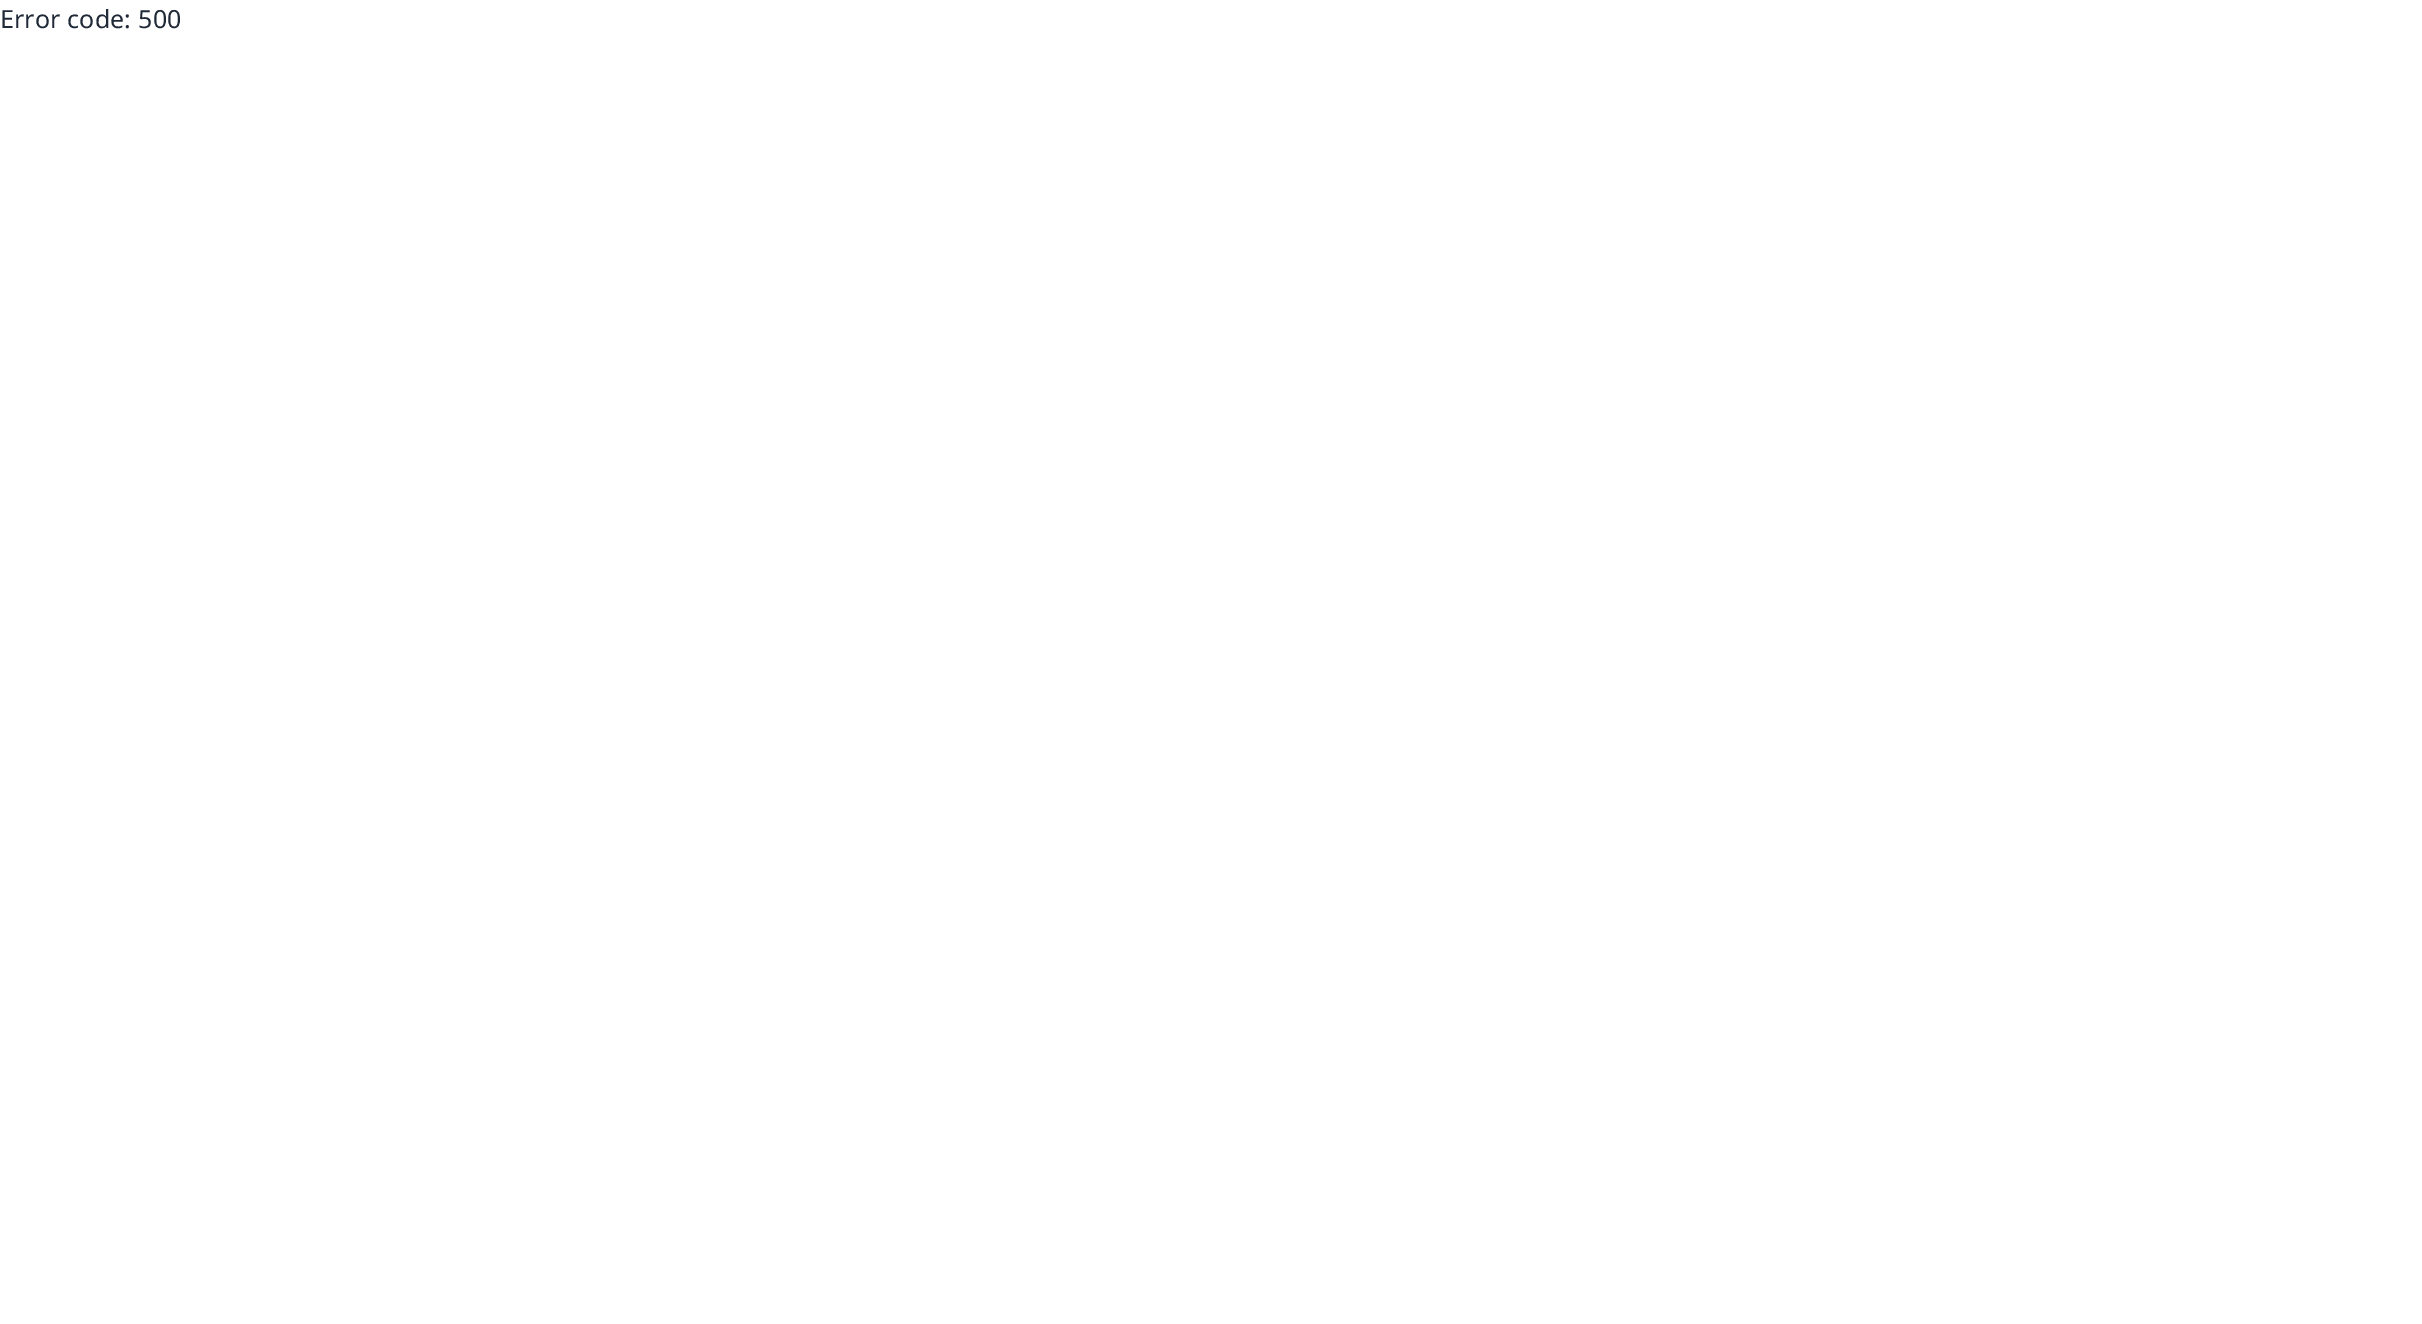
%!PS
<< /PageSize [2422 1324] >> setpagedevice
/m/moveto load def
/C { dup -16 bitshift 255 div exch dup -8 bitshift 255 and 255 div exch 255 and 255 div setrgbcolor } def
/F { [ exch dup neg 0 0 3 -1 roll 0 0 ] selectfont } def
/R { rectfill } def
0 1324 translate 1 -1 scale
4 setmiterlimit
16#FFFFFF C
0 0 2422 1324 R
/NotoSans-Regular 25 F
16#1F2937 C
0 28 m 1 0 32 (Error code: 500) widthshow
showpage
